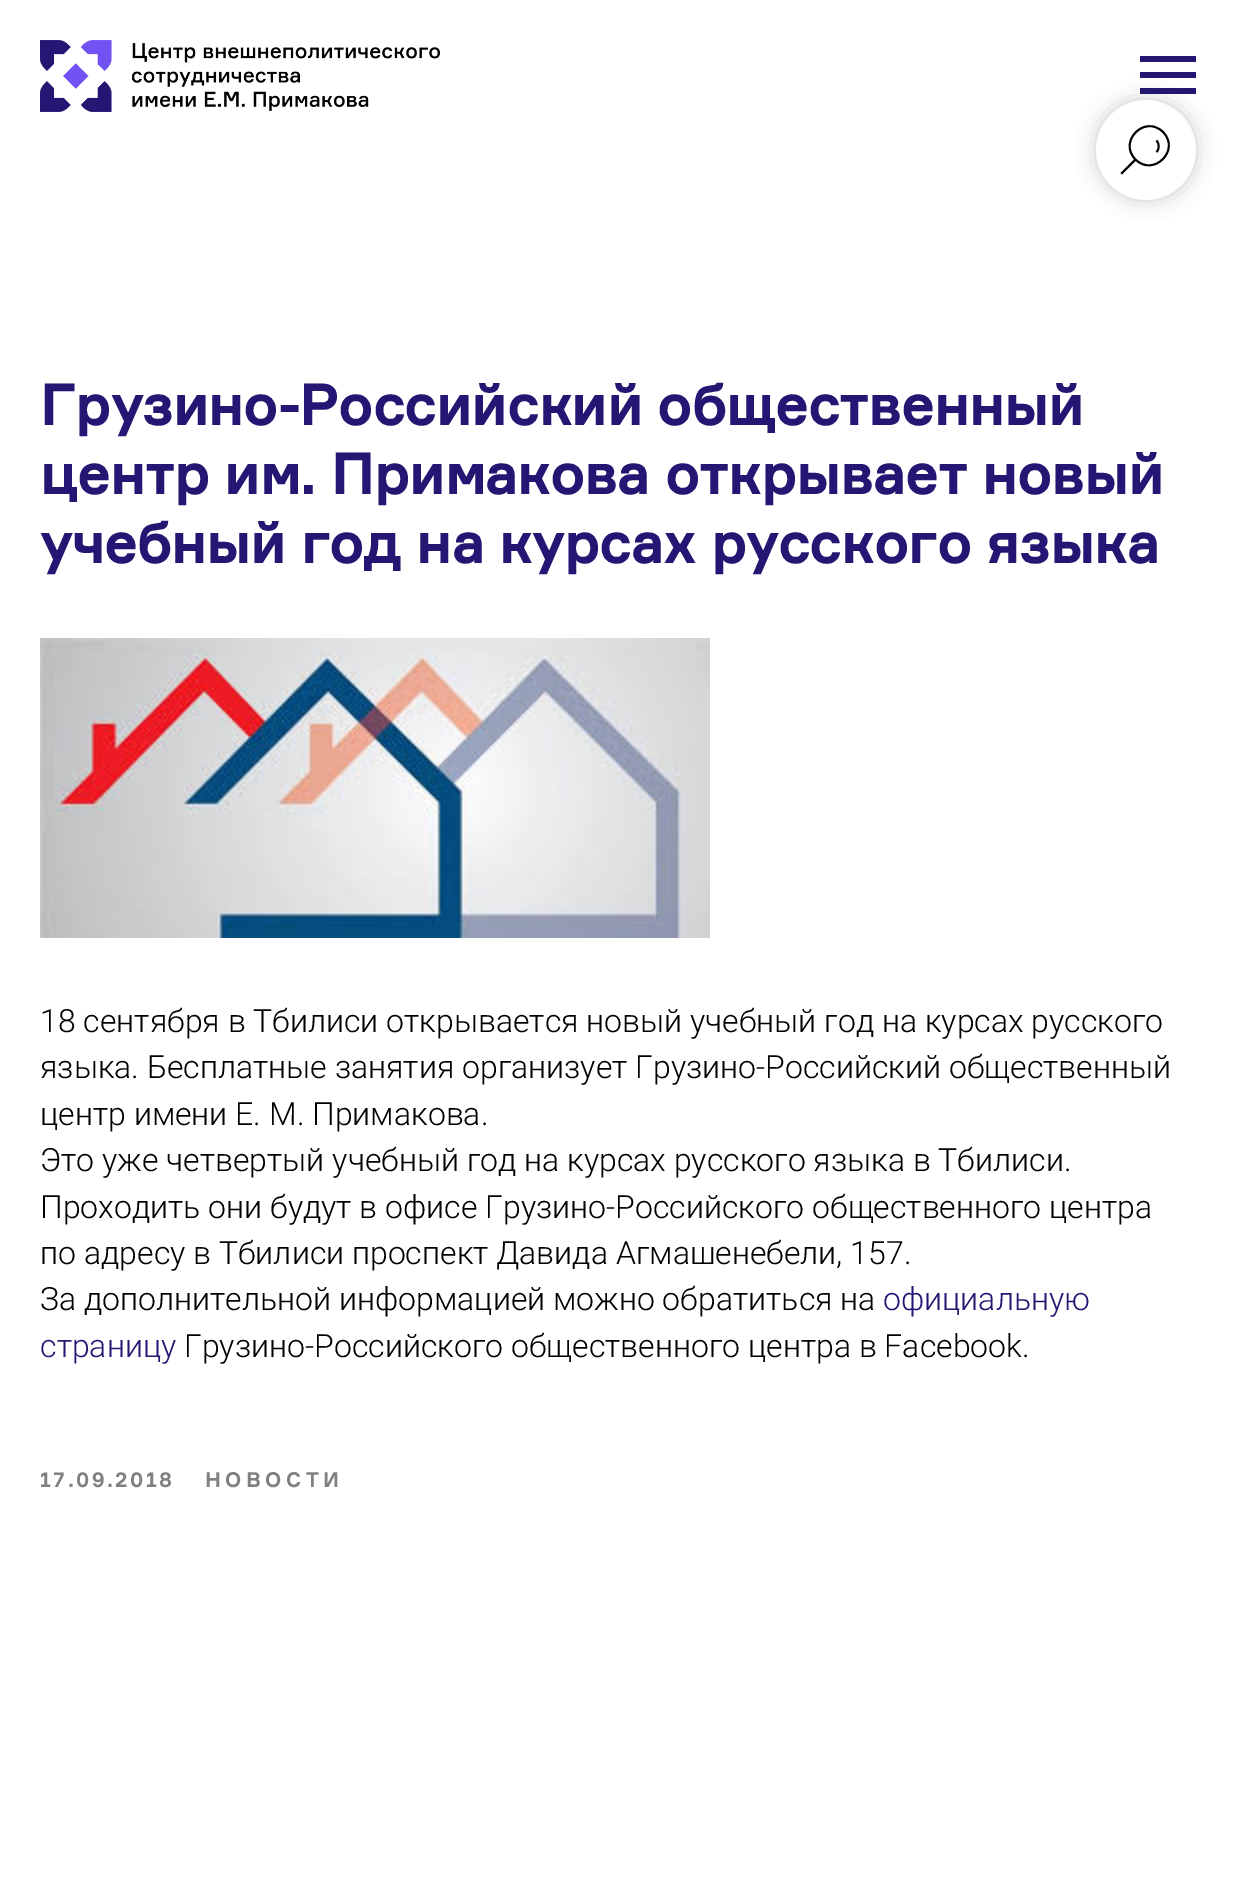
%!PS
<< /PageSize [1235 1901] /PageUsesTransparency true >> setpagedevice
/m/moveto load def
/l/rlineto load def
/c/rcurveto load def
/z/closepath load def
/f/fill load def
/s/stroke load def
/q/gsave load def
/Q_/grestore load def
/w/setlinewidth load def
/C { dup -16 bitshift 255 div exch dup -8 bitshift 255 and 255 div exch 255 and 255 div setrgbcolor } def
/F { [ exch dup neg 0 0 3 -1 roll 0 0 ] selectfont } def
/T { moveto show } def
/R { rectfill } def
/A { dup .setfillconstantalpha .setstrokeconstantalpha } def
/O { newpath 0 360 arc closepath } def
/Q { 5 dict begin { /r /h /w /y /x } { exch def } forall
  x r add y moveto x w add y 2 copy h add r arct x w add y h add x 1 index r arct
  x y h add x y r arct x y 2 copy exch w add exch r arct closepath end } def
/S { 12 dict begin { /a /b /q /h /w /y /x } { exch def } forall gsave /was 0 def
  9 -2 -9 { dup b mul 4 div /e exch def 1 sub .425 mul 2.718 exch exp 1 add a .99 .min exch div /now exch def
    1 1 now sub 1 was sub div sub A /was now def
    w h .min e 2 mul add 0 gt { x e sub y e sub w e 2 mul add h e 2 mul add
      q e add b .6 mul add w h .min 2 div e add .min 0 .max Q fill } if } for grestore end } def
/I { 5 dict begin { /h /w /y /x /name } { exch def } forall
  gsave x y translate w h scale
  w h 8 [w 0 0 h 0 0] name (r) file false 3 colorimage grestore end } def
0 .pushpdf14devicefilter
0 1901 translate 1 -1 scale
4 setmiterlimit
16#FFFFFF C
0 0 1235 1901 R
(1.rgb) 40 40 400 72 I
16#231773 C
1140 56 56 6 R
1140 72 56 6 R
1140 88 56 6 R
q
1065 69 m 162 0 l 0 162 l -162 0 l z 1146 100 m 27.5 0 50 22.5 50 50 c 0 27.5 -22.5 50 -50 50 c -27.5 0 -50 -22.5 -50 -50 c 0 -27.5 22.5 -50 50 -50 c z eoclip newpath
16#000000 C
1096 100 100 100 50 10 .2 S
Q_
0.8 A
16#FFFFFF C
1146 150 50 O f
1 A
16#000000 C
1.9 w
2 setlinecap
1135 160 m -13 13 l s
0 setlinecap
1163 132 m 18 18 -9.5 45.5 -27.5 27.5 c -18 -18 9.5 -45.5 27.5 -27.5 c z 1156.5 140.5 m 3 3.5 3 8.5 0 11.5 c s
/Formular-Bold 56 F
16#231773 C
(Грузино-Российский общественный) 40 425 T
(центр им. Примакова открывает новый) 40 494 T
(учебный год на курсах русского языка) 40 563 T
(2.rgb) 40 638 670 300 I
/Roboto-Light 32 F
16#000000 C
(18 сентября в Тбилиси открывается новый учебный год на курсах русского) 40 1032 T
(языка. Бесплатные занятия организует Грузино-Российский общественный) 40 1078 T
(центр имени Е. М. Примакова.) 40 1125 T
(Это уже четвертый учебный год на курсах русского языка в Тбилиси.) 40 1171 T
(Проходить они будут в офисе Грузино-Российского общественного центра) 40 1218 T
(по адресу в Тбилиси проспект Давида Агмашенебели, 157.) 40 1264 T
(За дополнительной информацией можно обратиться на) 40 1310 T
16#231773 C
(официальную) 883 1310 T
(страницу) 40 1357 T
16#000000 C
(Грузино-Российского общественного центра в Facebook.) 184 1357 T
/Formular-Bold 20 F
16#808080 C
40 1487 m 3 0 (17.09.2018) ashow
205 1487 m 5 0 (НОВОСТИ) ashow
.poppdf14devicefilter showpage
